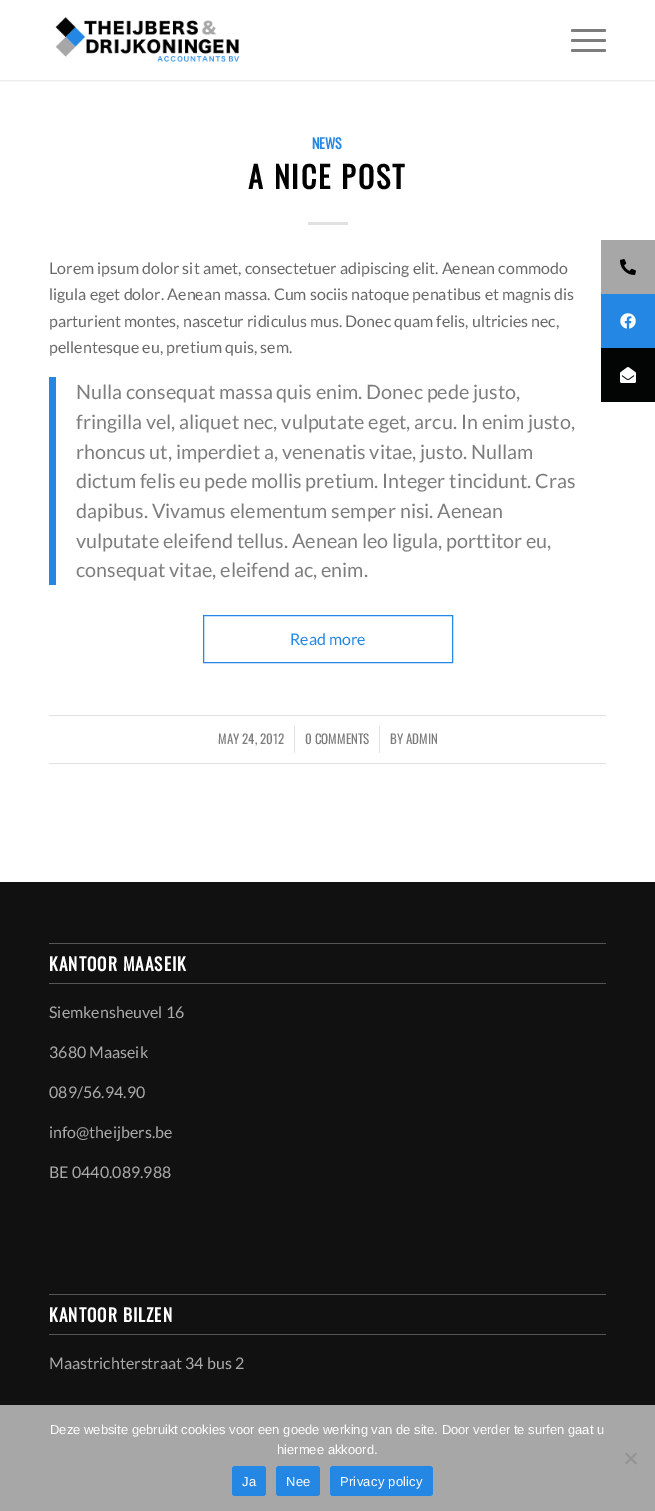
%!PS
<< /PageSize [655 1511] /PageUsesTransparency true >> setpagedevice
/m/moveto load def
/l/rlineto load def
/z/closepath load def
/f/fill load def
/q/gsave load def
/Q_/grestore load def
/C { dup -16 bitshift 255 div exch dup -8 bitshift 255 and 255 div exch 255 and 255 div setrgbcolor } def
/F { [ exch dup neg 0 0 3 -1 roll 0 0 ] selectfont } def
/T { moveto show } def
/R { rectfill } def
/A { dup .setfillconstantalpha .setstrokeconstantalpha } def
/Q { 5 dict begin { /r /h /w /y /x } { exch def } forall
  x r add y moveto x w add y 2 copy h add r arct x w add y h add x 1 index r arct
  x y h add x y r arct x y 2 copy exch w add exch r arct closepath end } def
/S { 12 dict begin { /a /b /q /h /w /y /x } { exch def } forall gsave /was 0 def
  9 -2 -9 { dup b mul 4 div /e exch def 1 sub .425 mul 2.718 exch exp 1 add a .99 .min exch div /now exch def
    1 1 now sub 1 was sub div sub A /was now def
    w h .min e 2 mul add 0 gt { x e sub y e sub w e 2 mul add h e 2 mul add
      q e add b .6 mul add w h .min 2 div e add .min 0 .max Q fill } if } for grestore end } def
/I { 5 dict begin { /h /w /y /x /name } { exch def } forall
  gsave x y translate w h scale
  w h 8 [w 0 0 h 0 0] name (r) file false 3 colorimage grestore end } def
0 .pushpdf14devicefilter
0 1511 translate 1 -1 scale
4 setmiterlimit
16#FFFFFF C
0 0 655 1511 R
q
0 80 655 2 rectclip
16#000000 C
-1 -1 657 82 0 1 .1 S
Q_
(1.rgb) 55 16 185 46 I
16#7D7D7D C
571 39 35 3 1.5 Q f
571 29 35 3 1.5 Q f
571 49 35 3 1.5 Q f
/Oswald-Bold 14 F
16#2487E4 C
(NEWS) 312 149 T
/Oswald-Bold 30 F
16#000000 C
248 189 m 2 0 (A NICE POST) ashow
16#E1E1E1 C
308 222 40 3 R
/Lato-Regular 16 F
16#696969 C
(Lorem ipsum dolor sit amet, consectetuer adipiscing elit. Aenean commodo) 49 274 T
(ligula eget dolor. Aenean massa. Cum sociis natoque penatibus et magnis dis) 49 300 T
(parturient montes, nascetur ridiculus mus. Donec quam felis, ultricies nec,) 49 327 T
(pellentesque eu, pretium quis, sem.) 49 353 T
16#2487E4 C
49 377 7 208 R
/Lato-Regular 19.75 F
16#7D7D7D C
(Nulla consequat massa quis enim. Donec pede justo,) 76 399 T
(fringilla vel, aliquet nec, vulputate eget, arcu. In enim justo,) 76 429 T
(rhoncus ut, imperdiet a, venenatis vitae, justo. Nullam) 76 459 T
(dictum felis eu pede mollis pretium. Integer tincidunt. Cras) 76 488 T
(dapibus. Vivamus elementum semper nisi. Aenean) 76 518 T
(vulputate eleifend tellus. Aenean leo ligula, porttitor eu,) 76 548 T
(consequat vitae, eleifend ac, enim.) 76 577 T
16#2487E4 C
203.5 615.5 249 47 rectstroke
/Lato-Regular 16 F
(Read more) 290 645 T
16#E1E1E1 C
49 715 557 1 R
49 763 557 1 R
/Oswald-Regular 13 F
16#7D7D7D C
(MAY 24, 2012) 218 744 T
16#E1E1E1 C
294 726 1 27 R
16#7D7D7D C
(0 COMMENTS) 305 744 T
16#E1E1E1 C
379 726 1 27 R
16#7D7D7D C
(BY ADMIN) 390 744 T
16#111111 C
0 882 655 523 R
16#555555 C
49 943 557 1 R
49 983 557 1 R
/Oswald-Bold 17.5 F
16#FFFFFF C
49 971 m 1 0 (KANTOOR MAASEIK) ashow
/Lato-Regular 16 F
16#AAAAAA C
(Siemkensheuvel 16) 49 1018 T
(3680 Maaseik) 49 1058 T
(089/56.94.90) 49 1098 T
(info@theijbers.be) 49 1138 T
(BE 0440.089.988) 49 1178 T
16#555555 C
49 1294 557 1 R
49 1334 557 1 R
/Oswald-Bold 17.5 F
16#FFFFFF C
49 1322 m 1 0 (KANTOOR BILZEN) ashow
/Lato-Regular 16 F
16#AAAAAA C
(Maastrichterstraat 34 bus 2) 49 1369 T
16#A7A7A7 C
601 240 54 54 R
(2.rgb) 620 259 16 16 I
16#2487E4 C
601 294 54 54 R
(3.rgb) 620 313 16 16 I
16#030404 C
601 348 54 54 R
(4.rgb) 620 367 16 16 I
16#A7A7A7 C
0 1405 655 106 R
/LiberationSans-Regular 13 F
16#FFFFFF C
(Deze website gebruikt cookies voor een goede werking van de site. Door verder te surfen gaat u) 50 1434 T
(hiermee akkoord.) 277 1454 T
16#949494 C
635.5 1452.5 m 1.5 1.5 l -10.5 10.5 l -1.5 -1.5 l z f
625 1454 m 1.5 -1.5 l 10.5 10.5 l -1.5 1.5 l z f
16#2487E4 C
232 1466 34 30 3 Q f
16#FFFFFF C
242 1486 m .25 0 (Ja) ashow
16#2487E4 C
276 1466 44 30 3 Q f
16#FFFFFF C
286 1486 m .25 0 (Nee) ashow
16#2487E4 C
330 1466 103 30 3 Q f
16#FFFFFF C
340 1486 m .25 0 (Privacy policy) ashow
.poppdf14devicefilter showpage
